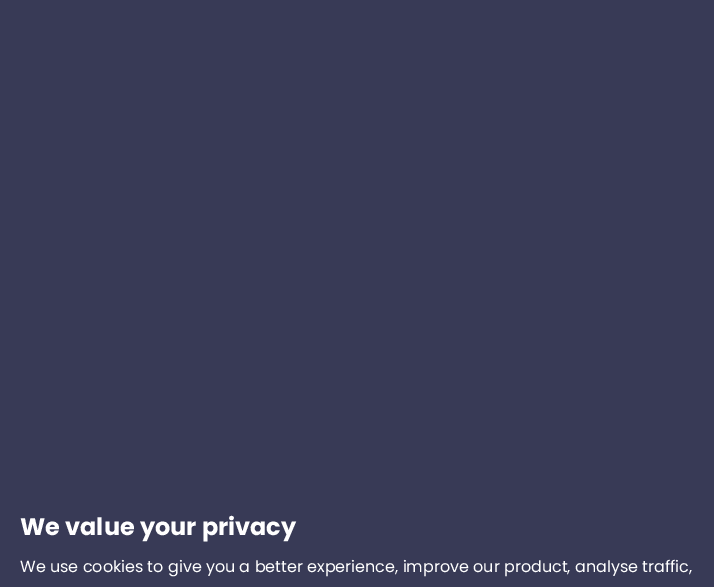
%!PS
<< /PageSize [714 587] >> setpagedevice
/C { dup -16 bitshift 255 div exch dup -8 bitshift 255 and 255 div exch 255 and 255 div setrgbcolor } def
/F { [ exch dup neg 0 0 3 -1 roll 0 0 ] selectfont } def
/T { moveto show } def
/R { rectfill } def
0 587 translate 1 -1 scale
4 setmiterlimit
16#383A56 C
0 0 714 587 R
/Poppins-Bold 24 F
16#FFFFFF C
(We value your privacy) 20 535 T
/Poppins-Regular 16 F
(We use cookies to give you a better experience, improve our product, analyse traffic,) 20 572 T
showpage
